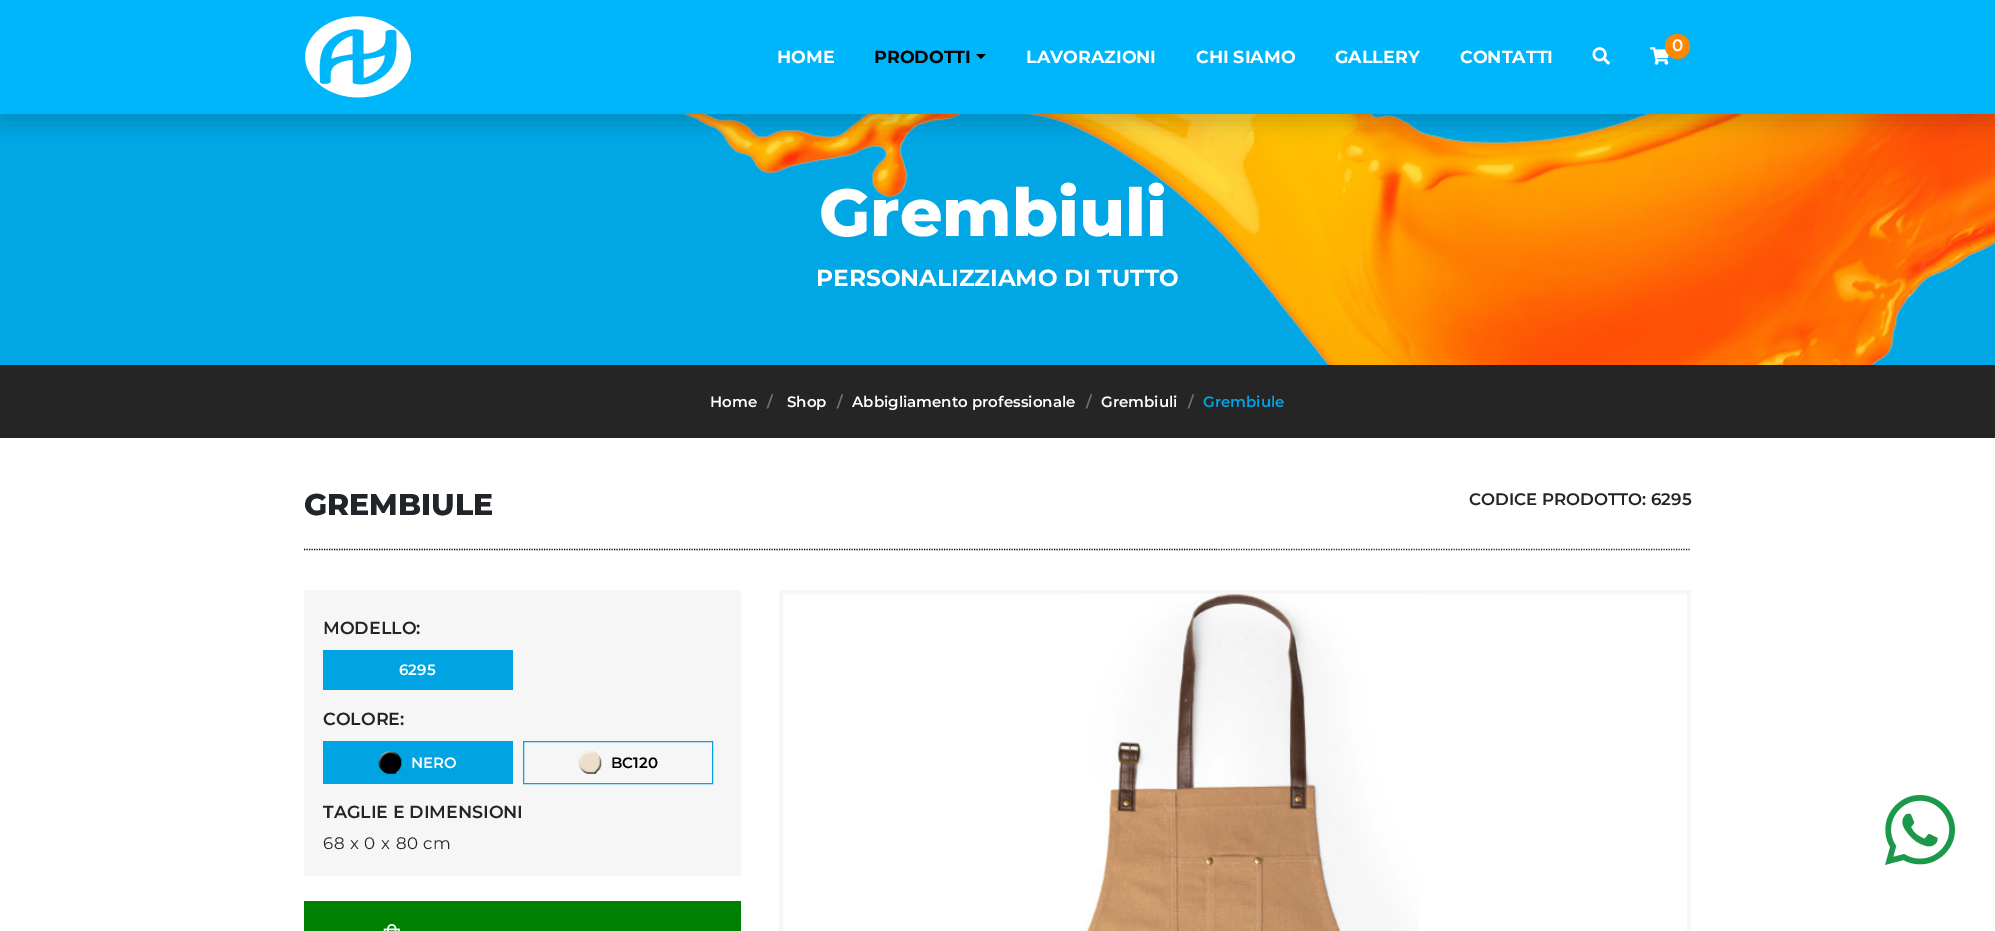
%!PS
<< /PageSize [1995 931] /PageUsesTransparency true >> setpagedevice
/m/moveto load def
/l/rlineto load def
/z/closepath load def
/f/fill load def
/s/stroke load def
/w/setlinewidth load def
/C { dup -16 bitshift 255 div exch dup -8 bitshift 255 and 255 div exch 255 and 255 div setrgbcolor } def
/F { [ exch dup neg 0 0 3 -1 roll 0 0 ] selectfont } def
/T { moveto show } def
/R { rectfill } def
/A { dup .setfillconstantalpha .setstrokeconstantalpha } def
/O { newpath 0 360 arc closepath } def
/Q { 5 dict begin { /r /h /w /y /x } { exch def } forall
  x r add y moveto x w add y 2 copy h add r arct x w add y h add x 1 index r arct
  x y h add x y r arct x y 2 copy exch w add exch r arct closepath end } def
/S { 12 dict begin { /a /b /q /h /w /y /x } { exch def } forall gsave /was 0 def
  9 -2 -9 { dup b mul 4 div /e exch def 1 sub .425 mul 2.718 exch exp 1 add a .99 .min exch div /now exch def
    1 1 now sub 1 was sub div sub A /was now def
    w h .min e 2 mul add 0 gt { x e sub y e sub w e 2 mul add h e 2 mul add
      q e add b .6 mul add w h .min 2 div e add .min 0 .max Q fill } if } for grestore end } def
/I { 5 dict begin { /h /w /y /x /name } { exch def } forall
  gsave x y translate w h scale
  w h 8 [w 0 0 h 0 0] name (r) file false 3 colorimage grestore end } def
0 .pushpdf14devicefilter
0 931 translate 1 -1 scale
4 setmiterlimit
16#FFFFFF C
0 0 1995 931 R
(1.rgb) 0 114 1995 251 I
16#000000 C
0 10 1995 114 0 10 .15 S
16#00B6FB C
0 0 1995 114 R
(2.rgb) 305 16 106 82 I
(3.rgb) 1650 47 19 18 I
16#FF8800 C
1677.5 46.5 12.5 O f
/Montserrat-SemiBold 16.7 F
16#FFFFFF C
(0) 1672 51 T
/Montserrat-Bold 17.5 F
(HOME) 777 63 T
16#000000 C
(PRODOTTI) 874 63 T
976 54 m 10 0 l -5 5 l z f
16#FFFFFF C
(LAVORAZIONI) 1026 63 T
(CHI SIAMO) 1196 63 T
(GALLERY) 1335 63 T
(CONTATTI) 1460 63 T
(4.rgb) 1592 47 18 18 I
/Montserrat-ExtraBold 66.5 F
(Grembiuli) 819 236 T
/Montserrat-Bold 23.3 F
(PERSONALIZZIAMO DI TUTTO) 816 286 T
(5.rgb) 1885 795 70 70 I
16#252525 C
0 365 1995 73 R
/Montserrat-SemiBold 15 F
16#FFFFFF C
(Home) 710 407 T
16#6C757D C
(/) 767 407 T
16#FFFFFF C
(Shop) 787 407 T
16#6C757D C
(/) 837 407 T
16#FFFFFF C
(Abbigliamento professionale) 852 407 T
16#6C757D C
(/) 1086 407 T
16#FFFFFF C
(Grembiuli) 1101 407 T
16#6C757D C
(/) 1188 407 T
16#00A4E2 C
(Grembiule) 1203 407 T
16#000000 C
1.2 w
[1.25 1.25] 0 setdash
304 549.5 m 912 0 l s
/Montserrat-ExtraBold 30 F
16#212529 C
(GREMBIULE) 304 515 T
1216 549.5 m 475 0 l s
/Montserrat-SemiBold 16.7 F
(CODICE PRODOTTO: 6295) 1469 505 T
16#F6F6F6 C
304 590 437 286 R
/Montserrat-SemiBold 17.5 F
16#212529 C
(MODELLO:) 323 634 T
16#00A4E2 C
323 650 190 40 R
/Montserrat-SemiBold 15 F
16#FFFFFF C
(6295) 399 675 T
/Montserrat-SemiBold 17.5 F
16#212529 C
(COLORE:) 323 725 T
16#00A4E2 C
323 741 190 43 R
(6.rgb) 378 751 24 23 I
/Montserrat-SemiBold 15 F
16#FFFFFF C
(NERO) 411 768 T
16#00A4E2 C
1 w
[] 0 setdash
523.5 741.5 189 42 rectstroke
(7.rgb) 578 751 24 23 I
16#000000 C
(BC120) 611 768 T
/Montserrat-SemiBold 17.5 F
16#212529 C
(TAGLIE E DIMENSIONI) 323 818 T
/Montserrat-Regular 16.7 F
323 849 m .6 0 (68 x 0 x 80 cm) ashow
16#008000 C
304 901 437 30 R
(8.rgb) 383 924 17 7 I
16#F6F6F6 C
4 w
781 592 908 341 rectstroke
(9.rgb) 1083 594 336 337 I
.poppdf14devicefilter showpage
